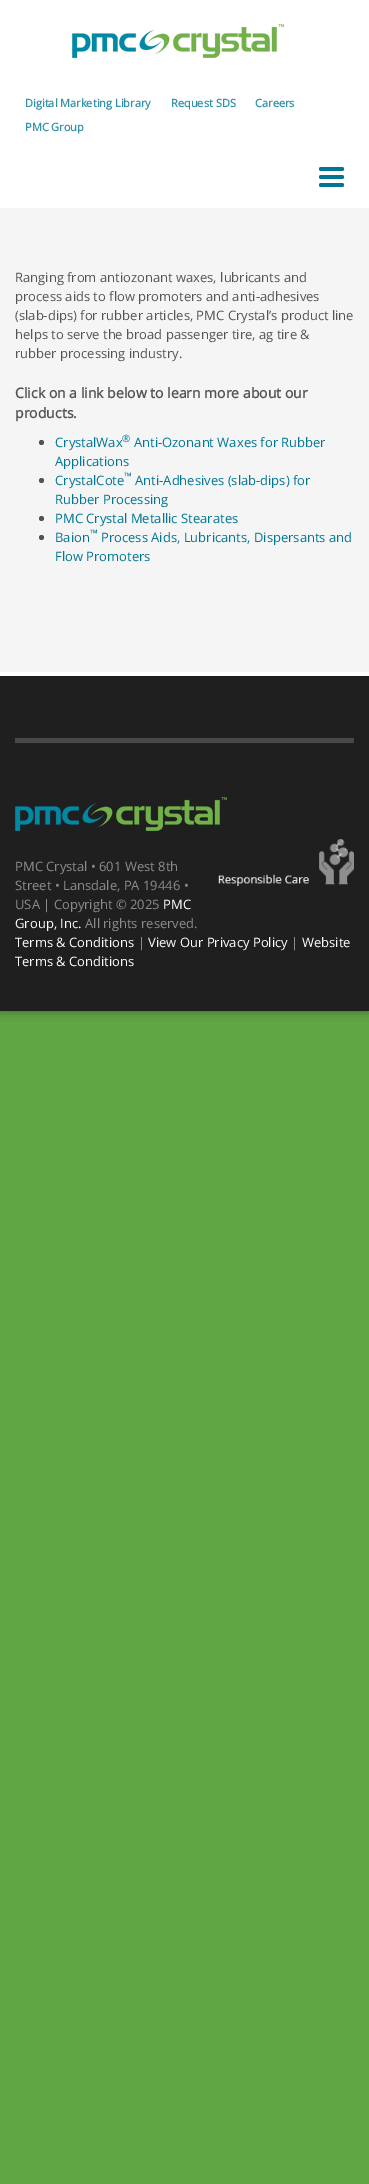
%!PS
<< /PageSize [369 2184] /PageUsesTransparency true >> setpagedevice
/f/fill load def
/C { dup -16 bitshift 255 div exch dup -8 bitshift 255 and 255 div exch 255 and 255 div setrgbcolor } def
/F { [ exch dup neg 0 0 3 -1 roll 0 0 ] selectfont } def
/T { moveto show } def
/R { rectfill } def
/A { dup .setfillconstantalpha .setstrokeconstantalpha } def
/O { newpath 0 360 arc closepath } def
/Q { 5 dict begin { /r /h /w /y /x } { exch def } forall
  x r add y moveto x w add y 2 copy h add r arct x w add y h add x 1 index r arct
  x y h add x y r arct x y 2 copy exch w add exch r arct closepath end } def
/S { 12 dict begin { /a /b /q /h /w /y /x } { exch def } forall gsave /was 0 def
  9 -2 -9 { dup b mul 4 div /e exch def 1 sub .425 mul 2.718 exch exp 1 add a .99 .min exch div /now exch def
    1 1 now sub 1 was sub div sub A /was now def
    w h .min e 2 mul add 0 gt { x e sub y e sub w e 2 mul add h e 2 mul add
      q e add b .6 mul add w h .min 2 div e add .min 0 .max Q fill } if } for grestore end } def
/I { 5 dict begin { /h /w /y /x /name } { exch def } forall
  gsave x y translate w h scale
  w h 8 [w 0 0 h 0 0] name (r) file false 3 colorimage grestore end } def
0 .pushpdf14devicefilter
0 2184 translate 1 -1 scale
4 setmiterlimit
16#60A645 C
0 0 369 2184 R
16#000000 C
0 0 369 1011 0 5 .4 S
16#F5F5F5 C
0 208 369 464 R
16#FFFFFF C
0 0 369 208 R
(1.rgb) 72 24 212 34 I
/OpenSans-Bold 11 F
16#3391A9 C
(Digital Marketing Library) 25 107 T
(Request SDS) 171 107 T
(Careers) 255 107 T
(PMC Group) 25 131 T
16#007594 C
319 183 25 4 2 Q f
319 175 25 4 2 Q f
319 167 25 4 2 Q f
/OpenSans-Regular 13 F
16#535353 C
(Ranging from antiozonant waxes, lubricants and) 15 282 T
(process aids to flow promoters and anti-adhesives) 15 301 T
(\(slab-dips\) for rubber articles, PMC Crystal’s product line) 15 320 T
(helps to serve the broad passenger tire, ag tire &) 15 339 T
(rubber processing industry.) 15 358 T
/OpenSans-Bold 14 F
(Click on a link below to learn more about our) 15 398 T
(products.) 15 418 T
41.5 442.5 2.5 O f
/OpenSans-Regular 13 F
16#007594 C
(CrystalWax) 55 447 T
/OpenSans-Regular 10 F
(®) 122 442 T
/OpenSans-Regular 13 F
(Anti-Ozonant Waxes for Rubber) 134 447 T
(Applications) 55 466 T
16#535353 C
41.5 480.5 2.5 O f
16#007594 C
(CrystalCote) 55 485 T
/OpenSans-Regular 10 F
(™) 124 480 T
/OpenSans-Regular 13 F
(Anti-Adhesives \(slab-dips\) for) 135 485 T
(Rubber Processing) 55 504 T
16#535353 C
41.5 518.5 2.5 O f
16#007594 C
(PMC Crystal Metallic Stearates) 55 523 T
16#535353 C
41.5 537.5 2.5 O f
16#007594 C
(Baion) 55 542 T
/OpenSans-Regular 10 F
(™) 90 537 T
/OpenSans-Regular 13 F
(Process Aids, Lubricants, Dispersants and) 101 542 T
(Flow Promoters) 55 561 T
16#1F1F1F C
0 676 369 335 R
16#FFFFFF C
0 672 369 4 R
16#484848 C
15 738 339 5 R
(2.rgb) 15 797 212 34 I
16#8B8C8D C
(PMC Crystal • 601 West 8th) 15 871 T
(3.rgb) 218 839 136 47 I
(Street • Lansdale, PA 19446 •) 15 890 T
(USA | Copyright © 2025) 15 909 T
16#FFFFFF C
(PMC) 163 909 T
(Group, Inc.) 15 928 T
16#8B8C8D C
(All rights reserved.) 85 928 T
16#FFFFFF C
(Terms & Conditions) 15 947 T
16#8B8C8D C
(|) 138 947 T
16#FFFFFF C
(View Our Privacy Policy) 148 947 T
16#8B8C8D C
(|) 291 947 T
16#FFFFFF C
(Website) 302 947 T
(Terms & Conditions) 15 966 T
.poppdf14devicefilter showpage
